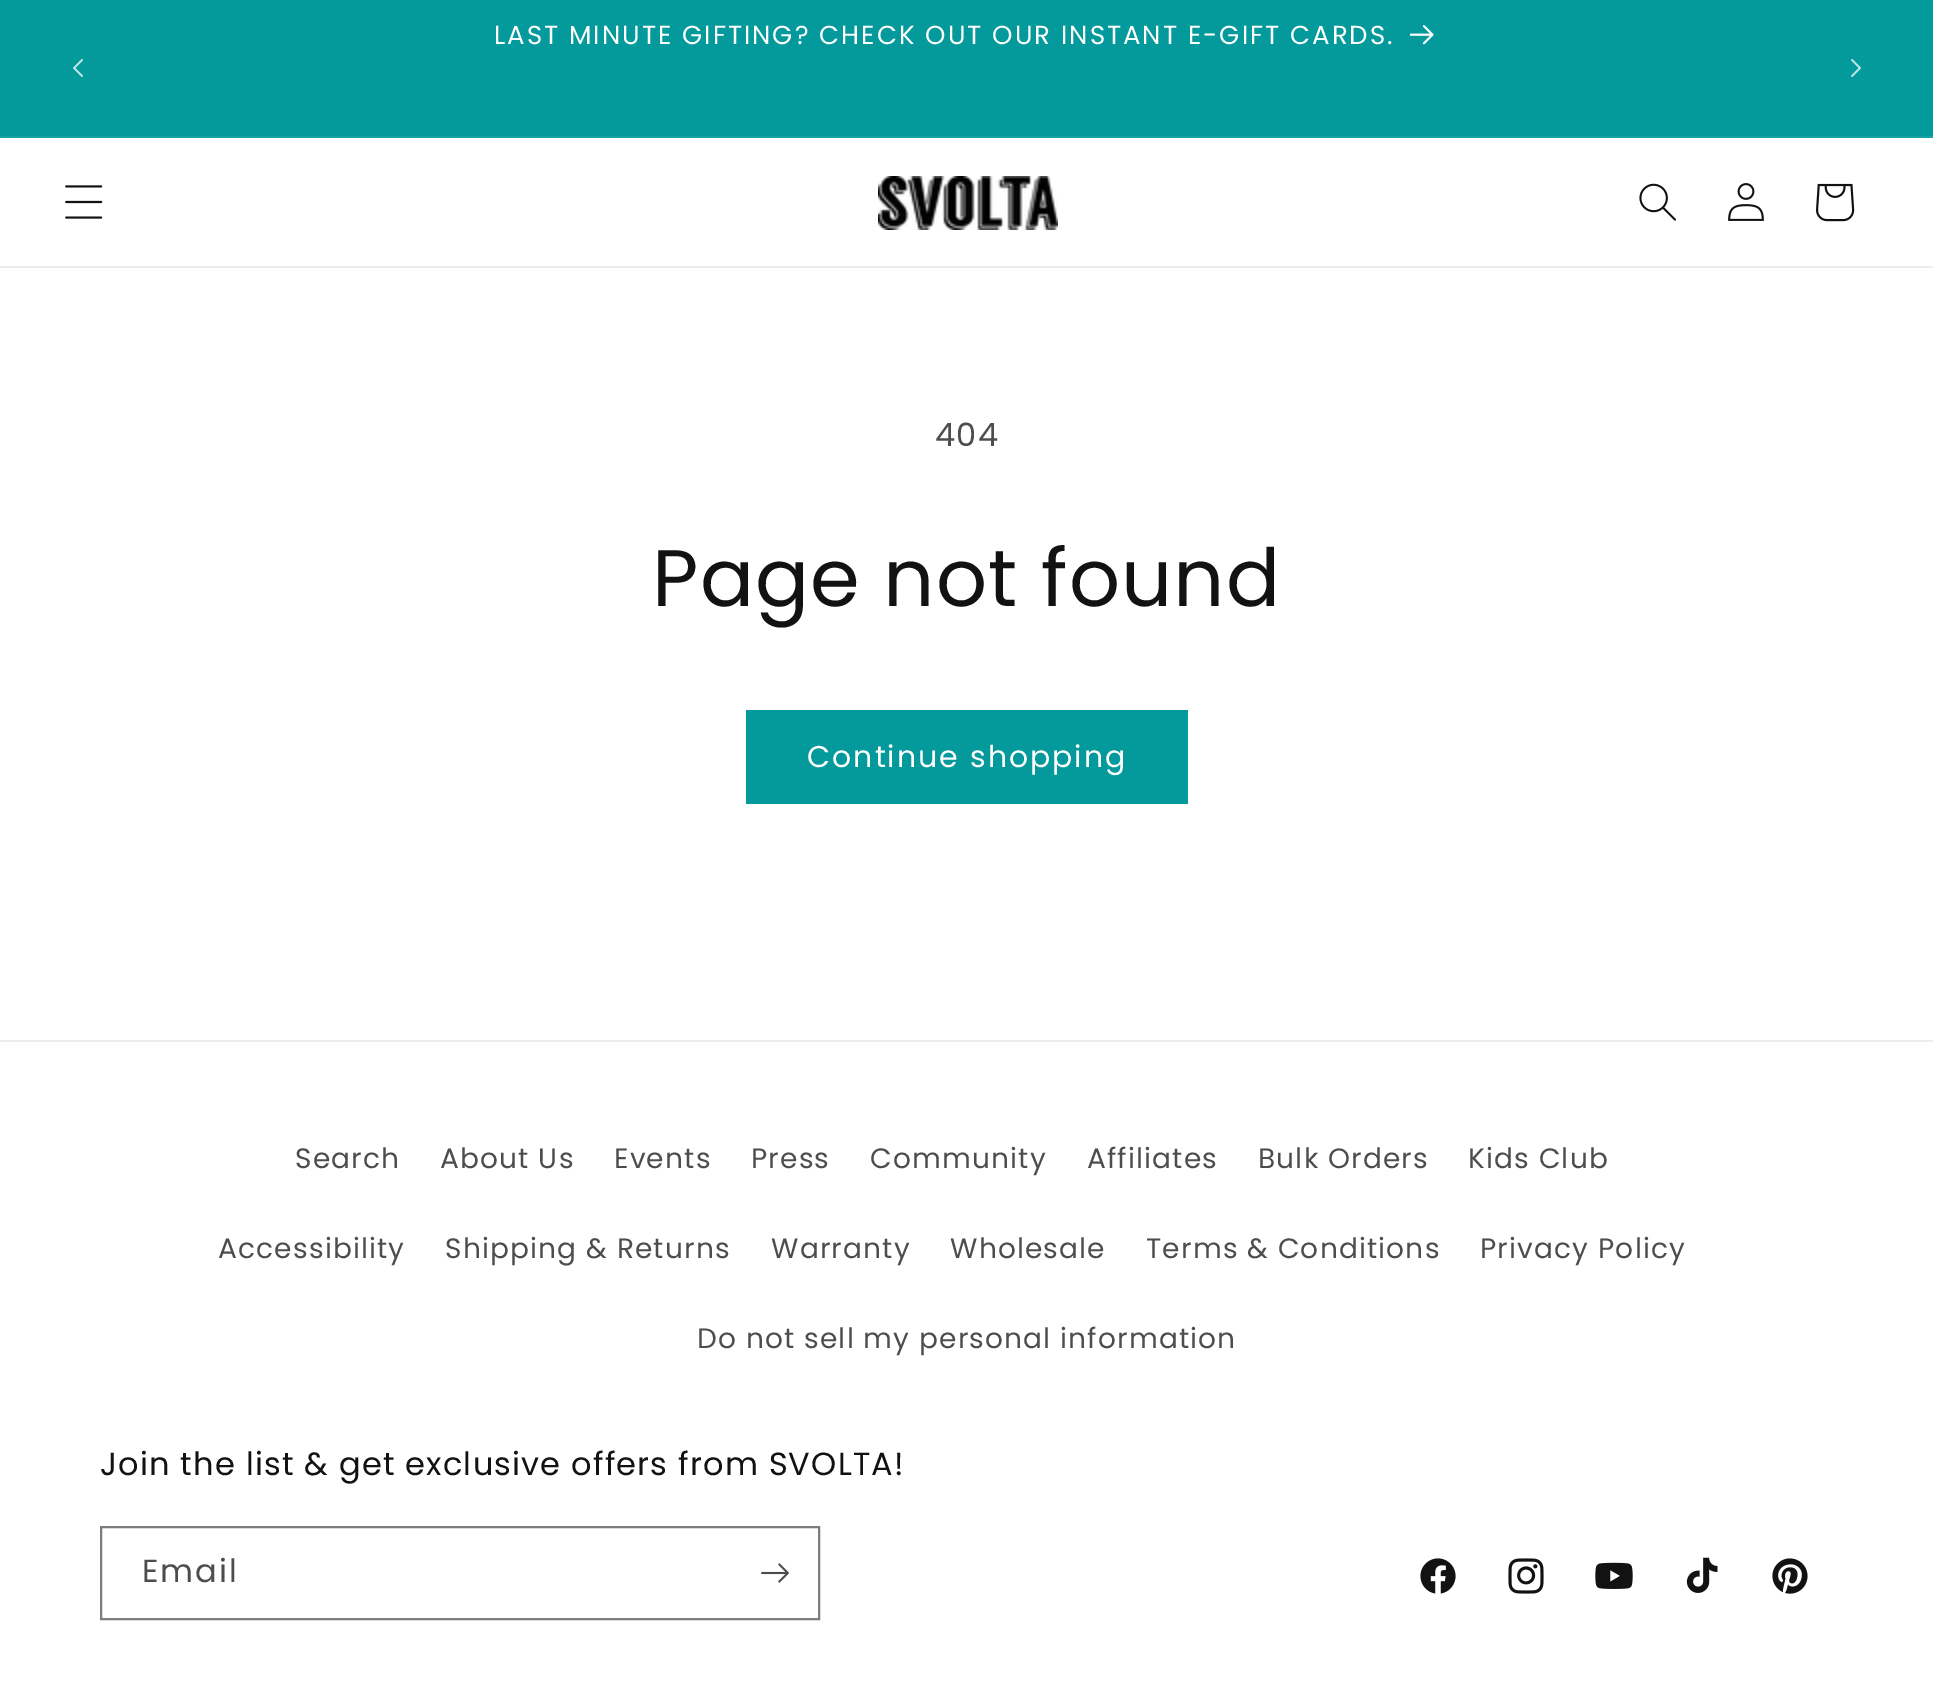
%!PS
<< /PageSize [1933 1699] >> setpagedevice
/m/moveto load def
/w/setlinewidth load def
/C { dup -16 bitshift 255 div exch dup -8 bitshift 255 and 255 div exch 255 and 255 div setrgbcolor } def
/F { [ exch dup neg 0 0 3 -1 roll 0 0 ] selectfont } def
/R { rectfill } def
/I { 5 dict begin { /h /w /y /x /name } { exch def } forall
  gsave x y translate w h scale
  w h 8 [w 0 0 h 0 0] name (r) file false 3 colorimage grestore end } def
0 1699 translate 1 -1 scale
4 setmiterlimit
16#FFFFFF C
0 0 1933 1699 R
16#049A9C C
0 0 1933 136 R
16#18A2A4 C
0 136 1933 2 R
/Poppins-Regular 26 F
16#FFFFFF C
494 44 m 2 0 (LAST MINUTE GIFTING? CHECK OUT OUR INSTANT E-GIFT CARDS.) ashow
(1.rgb) 1410 25 24 20 I
(2.rgb) 73 59 10 18 I
(3.rgb) 1851 59 10 18 I
16#ECECEC C
0 266 1933 2 R
(4.rgb) 65 185 38 34 I
(5.rgb) 878 176 180 54 I
(6.rgb) 1639 183 37 38 I
(7.rgb) 1728 183 36 38 I
(8.rgb) 1816 183 39 39 I
/Poppins-Regular 32 F
16#4D4D4D C
935 446 m 1.2 0 (404) ashow
/Poppins-Regular 80 F
16#121212 C
652 606 m 1.2 0 (Page not found) ashow
16#049A9C C
746 710 442 94 R
/Poppins-Regular 30 F
16#FFFFFF C
807 767 m 2 0 (Continue shopping) ashow
16#ECECEC C
0 1040 1933 2 R
/Poppins-Regular 28 F
16#4D4D4D C
295 1168 m 1.2 0 (Search) ashow
440 1168 m 1.2 0 (About Us) ashow
614 1168 m 1.2 0 (Events) ashow
751 1168 m 1.2 0 (Press) ashow
870 1168 m 1.2 0 (Community) ashow
1087 1168 m 1.2 0 (Affiliates) ashow
1258 1168 m 1.2 0 (Bulk Orders) ashow
1468 1168 m 1.2 0 (Kids Club) ashow
218 1258 m 1.2 0 (Accessibility) ashow
445 1258 m 1.2 0 (Shipping & Returns) ashow
771 1258 m 1.2 0 (Warranty) ashow
950 1258 m 1.2 0 (Wholesale) ashow
1146 1258 m 1.2 0 (Terms & Conditions) ashow
1480 1258 m 1.2 0 (Privacy Policy) ashow
697 1348 m 1.2 0 (Do not sell my personal information) ashow
/Poppins-Regular 32 F
16#121212 C
100 1475 m 1.2 0 (Join the list & get exclusive offers from SVOLTA!) ashow
16#7D7D7D C
2 w
101 1527 718 92 rectstroke
16#4D4D4D C
142 1582 m 2 0 (Email) ashow
(9.rgb) 761 1563 28 20 I
(10.rgb) 1420 1558 36 36 I
(11.rgb) 1508 1558 36 36 I
(12.rgb) 1595 1562 38 27 I
(13.rgb) 1686 1557 32 36 I
(14.rgb) 1772 1558 36 36 I
showpage
